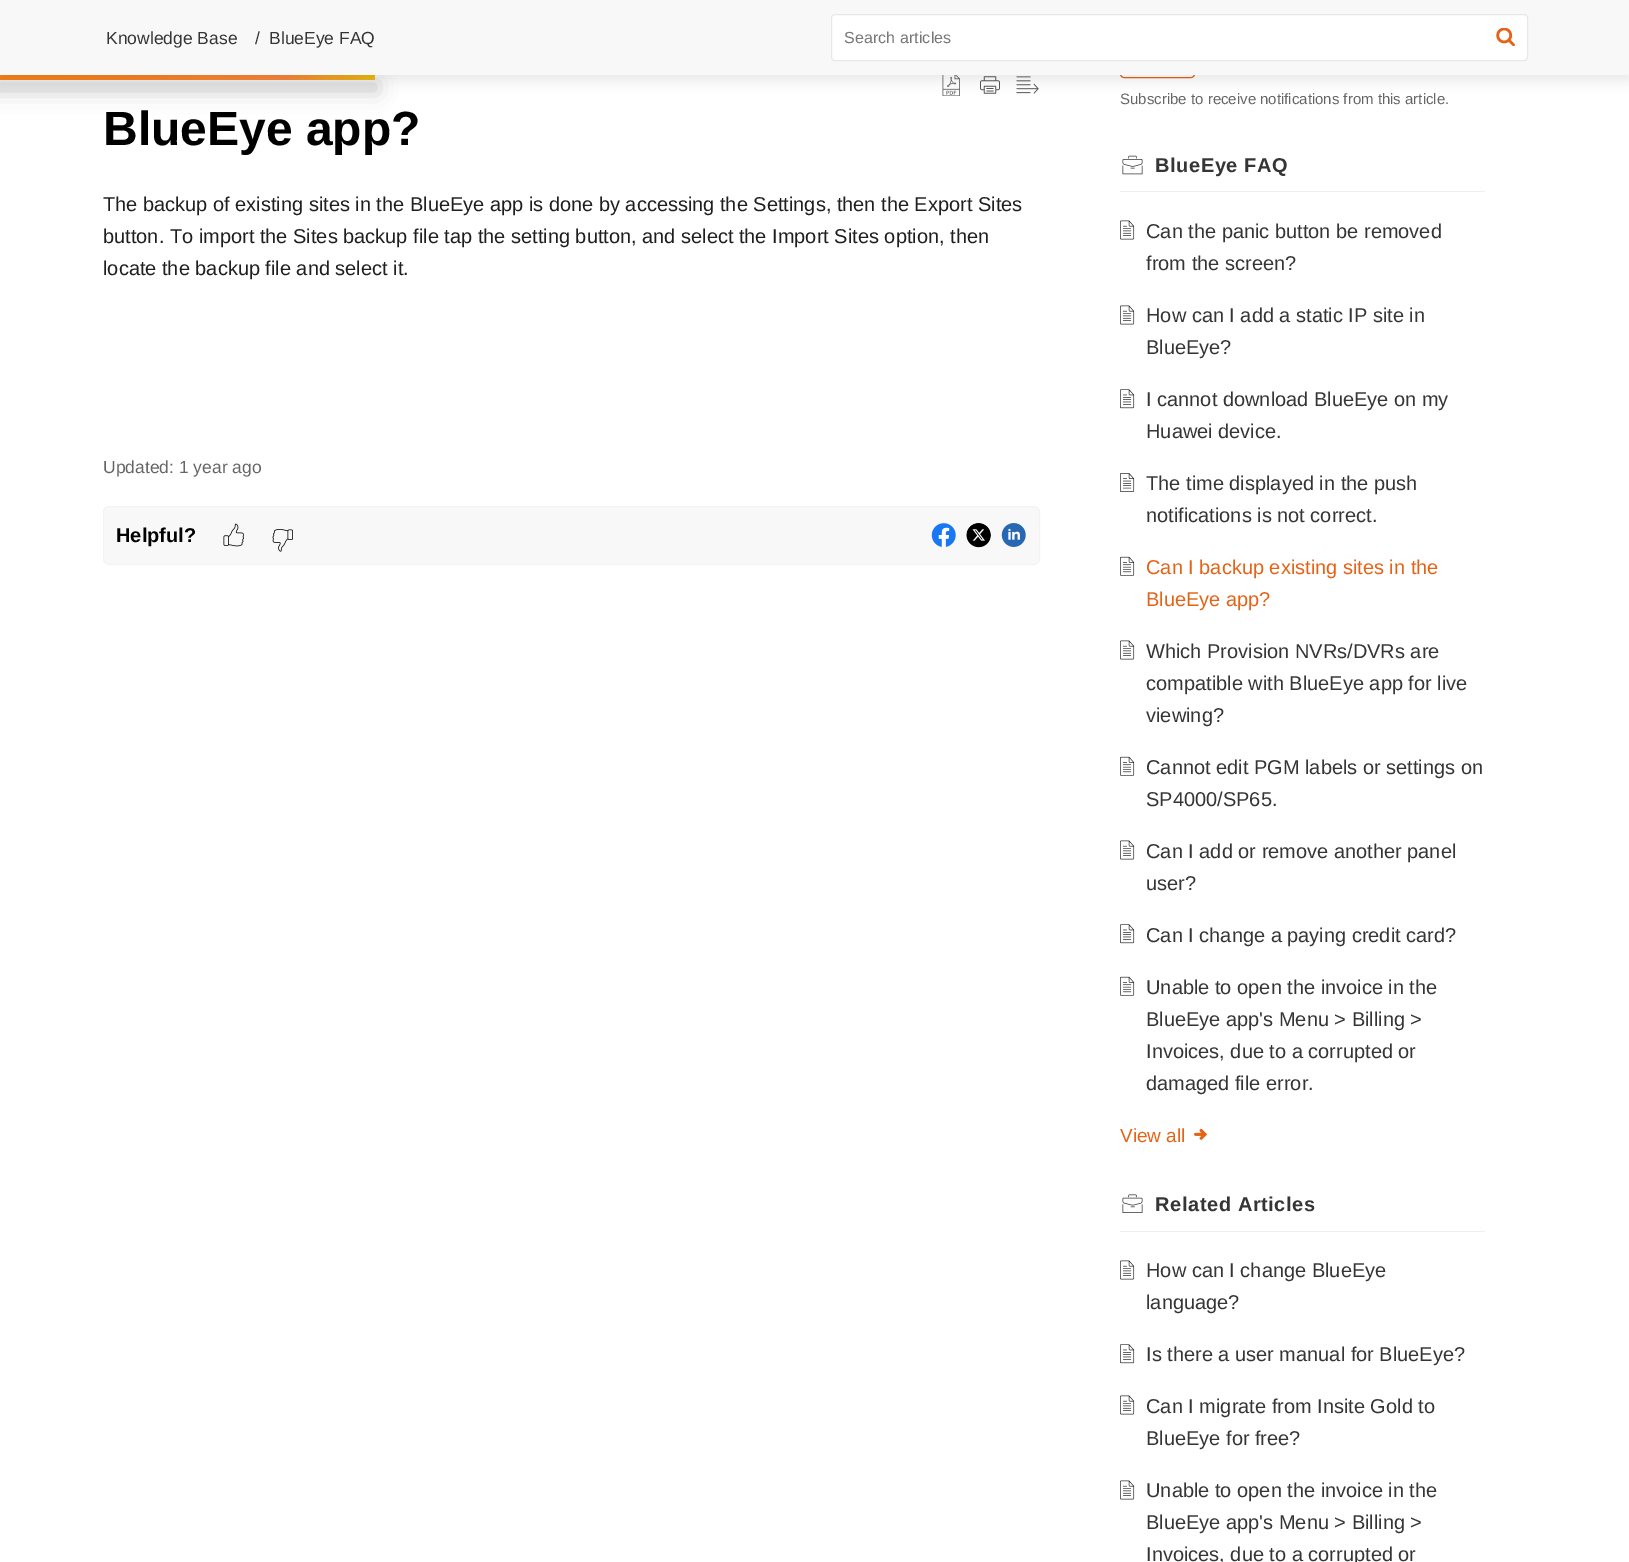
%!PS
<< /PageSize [1629 1562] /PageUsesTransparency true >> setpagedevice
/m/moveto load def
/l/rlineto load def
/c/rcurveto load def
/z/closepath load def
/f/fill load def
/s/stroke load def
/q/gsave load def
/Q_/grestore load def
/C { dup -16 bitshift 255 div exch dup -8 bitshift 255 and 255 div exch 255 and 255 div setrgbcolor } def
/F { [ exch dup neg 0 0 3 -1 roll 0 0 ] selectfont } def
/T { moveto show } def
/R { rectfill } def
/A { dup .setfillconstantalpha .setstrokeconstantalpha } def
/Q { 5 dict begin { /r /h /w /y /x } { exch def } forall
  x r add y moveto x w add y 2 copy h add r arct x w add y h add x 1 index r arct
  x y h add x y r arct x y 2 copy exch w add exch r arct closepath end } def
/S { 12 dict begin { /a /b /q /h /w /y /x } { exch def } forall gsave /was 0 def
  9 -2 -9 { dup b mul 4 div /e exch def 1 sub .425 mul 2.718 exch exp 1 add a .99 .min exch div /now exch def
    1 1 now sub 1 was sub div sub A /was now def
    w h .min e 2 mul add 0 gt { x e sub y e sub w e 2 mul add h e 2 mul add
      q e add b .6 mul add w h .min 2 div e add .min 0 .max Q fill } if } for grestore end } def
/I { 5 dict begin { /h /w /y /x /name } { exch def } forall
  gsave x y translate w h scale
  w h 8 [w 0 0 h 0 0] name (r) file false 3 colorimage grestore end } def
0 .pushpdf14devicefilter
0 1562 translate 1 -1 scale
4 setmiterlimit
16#FFFFFF C
0 0 1629 1562 R
16#000000 C
0 85 375 5 2.5 11 .24 S
q 0 75 m 372.5 0 l 1.5 0 2.5 1 2.5 2.5 c 0 1.5 -1 2.5 -2.5 2.5 c -372.5 0 l z clip newpath
<< /ShadingType 2 /ColorSpace /DeviceRGB /Coords [0 78 375 77] /Extend [true true] /Function << /FunctionType 3 /Domain [0 1] /Functions [<< /FunctionType 2 /Domain [0 1] /C0 [.98 .514 .094] /C1 [.98 .514 .094] /N 1 >> << /FunctionType 2 /Domain [0 1] /C0 [.98 .514 .094] /C1 [.98 .525 .224] /N 1 >> << /FunctionType 2 /Domain [0 1] /C0 [.98 .525 .224] /C1 [.929 .729 .067] /N 1 >>] /Bounds [.16 .76] /Encode [0 1 0 1 0 1] >> >> shfill Q_
(2.rgb) 942 75 18 21 I
(3.rgb) 980 76 20 18 I
(4.rgb) 1016 76 23 18 I
16#E46317 C
1120.5 50.5 74 27 3.5 Q s
16#000000 C
0 6 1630 75 0 6 .08 S
16#F8F8F8 C
0 0 1629 75 R
/LiberationSans-Regular 17.5 F
16#353535 C
(Knowledge Base) 106 44 T
(/) 255 44 T
(BlueEye FAQ) 269 44 T
16#FFFFFF C
831.5 14.5 696 46 3.5 Q q f Q_
16#E5E8EA C
s
/LiberationSans-Regular 16 F
16#777777 C
844 43 m .1 0 (Search articles) ashow
(1.rgb) 1496 28 19 18 I
/LiberationSans-Bold 48 F
16#000000 C
(BlueEye app?) 103 145 T
/LiberationSans-Regular 20 F
16#1F1F1F C
(The backup of existing sites in the BlueEye app is done by accessing the Settings, then the Export Sites) 103 211 T
(button. To import the Sites backup file tap the setting button, and select the Import Sites option, then) 103 243 T
(locate the backup file and select it.) 103 275 T
/LiberationSans-Regular 17.5 F
16#666666 C
(Updated: 1 year ago) 103 473 T
16#F8F8F8 C
103.5 506.5 936 58 5.5 Q q f Q_
16#F3F3F3 C
s
/LiberationSans-Bold 20 F
16#000000 C
(Helpful?) 116 542 T
(5.rgb) 223 523 21 24 I
(6.rgb) 272 529 21 23 I
(7.rgb) 931 523 25 24 I
(8.rgb) 966 523 25 25 I
(9.rgb) 1001 523 25 24 I
/LiberationSans-Regular 15 F
16#666666 C
(Subscribe to receive notifications from this article.) 1120 104 T
16#EFEFEF C
1120 191 365 1 R
(10.rgb) 1122 155 21 20 I
/LiberationSans-Bold 20 F
16#353535 C
1155 172 m .6 0 (BlueEye FAQ) ashow
(11.rgb) 1120 220 15 20 I
/LiberationSans-Regular 20 F
(Can the panic button be removed) 1146 238 T
(from the screen?) 1146 270 T
(11.rgb) 1120 305 15 20 I
(How can I add a static IP site in) 1146 322 T
(BlueEye?) 1146 354 T
(12.rgb) 1120 389 15 20 I
(I cannot download BlueEye on my) 1146 406 T
(Huawei device.) 1146 438 T
(13.rgb) 1120 473 15 19 I
(The time displayed in the push) 1146 490 T
(notifications is not correct.) 1146 522 T
(14.rgb) 1120 556 15 20 I
16#E46317 C
(Can I backup existing sites in the) 1146 574 T
(BlueEye app?) 1146 606 T
(11.rgb) 1120 640 15 20 I
16#353535 C
(Which Provision NVRs/DVRs are) 1146 658 T
(compatible with BlueEye app for live) 1146 690 T
(viewing?) 1146 722 T
(14.rgb) 1120 756 15 20 I
(Cannot edit PGM labels or settings on) 1146 774 T
(SP4000/SP65.) 1146 806 T
(11.rgb) 1120 840 15 20 I
(Can I add or remove another panel) 1146 858 T
(user?) 1146 890 T
(12.rgb) 1120 924 15 20 I
(Can I change a paying credit card?) 1146 942 T
(14.rgb) 1120 976 15 20 I
(Unable to open the invoice in the) 1146 994 T
(BlueEye app's Menu > Billing >) 1146 1026 T
(Invoices, due to a corrupted or) 1146 1058 T
(damaged file error.) 1146 1090 T
/LiberationSans-Regular 19 F
16#E46317 C
(View all) 1120 1142 T
(15.rgb) 1194 1128 14 12 I
16#EFEFEF C
1120 1231 365 1 R
(16.rgb) 1122 1194 21 19 I
/LiberationSans-Bold 20 F
16#353535 C
1155 1211 m .6 0 (Related Articles) ashow
(11.rgb) 1120 1260 15 20 I
/LiberationSans-Regular 20 F
(How can I change BlueEye) 1146 1277 T
(language?) 1146 1309 T
(12.rgb) 1120 1344 15 20 I
(Is there a user manual for BlueEye?) 1146 1361 T
(11.rgb) 1120 1395 15 20 I
(Can I migrate from Insite Gold to) 1146 1413 T
(BlueEye for free?) 1146 1445 T
(11.rgb) 1120 1480 15 20 I
(Unable to open the invoice in the) 1146 1497 T
(BlueEye app's Menu > Billing >) 1146 1529 T
(Invoices, due to a corrupted or) 1146 1561 T
.poppdf14devicefilter showpage
